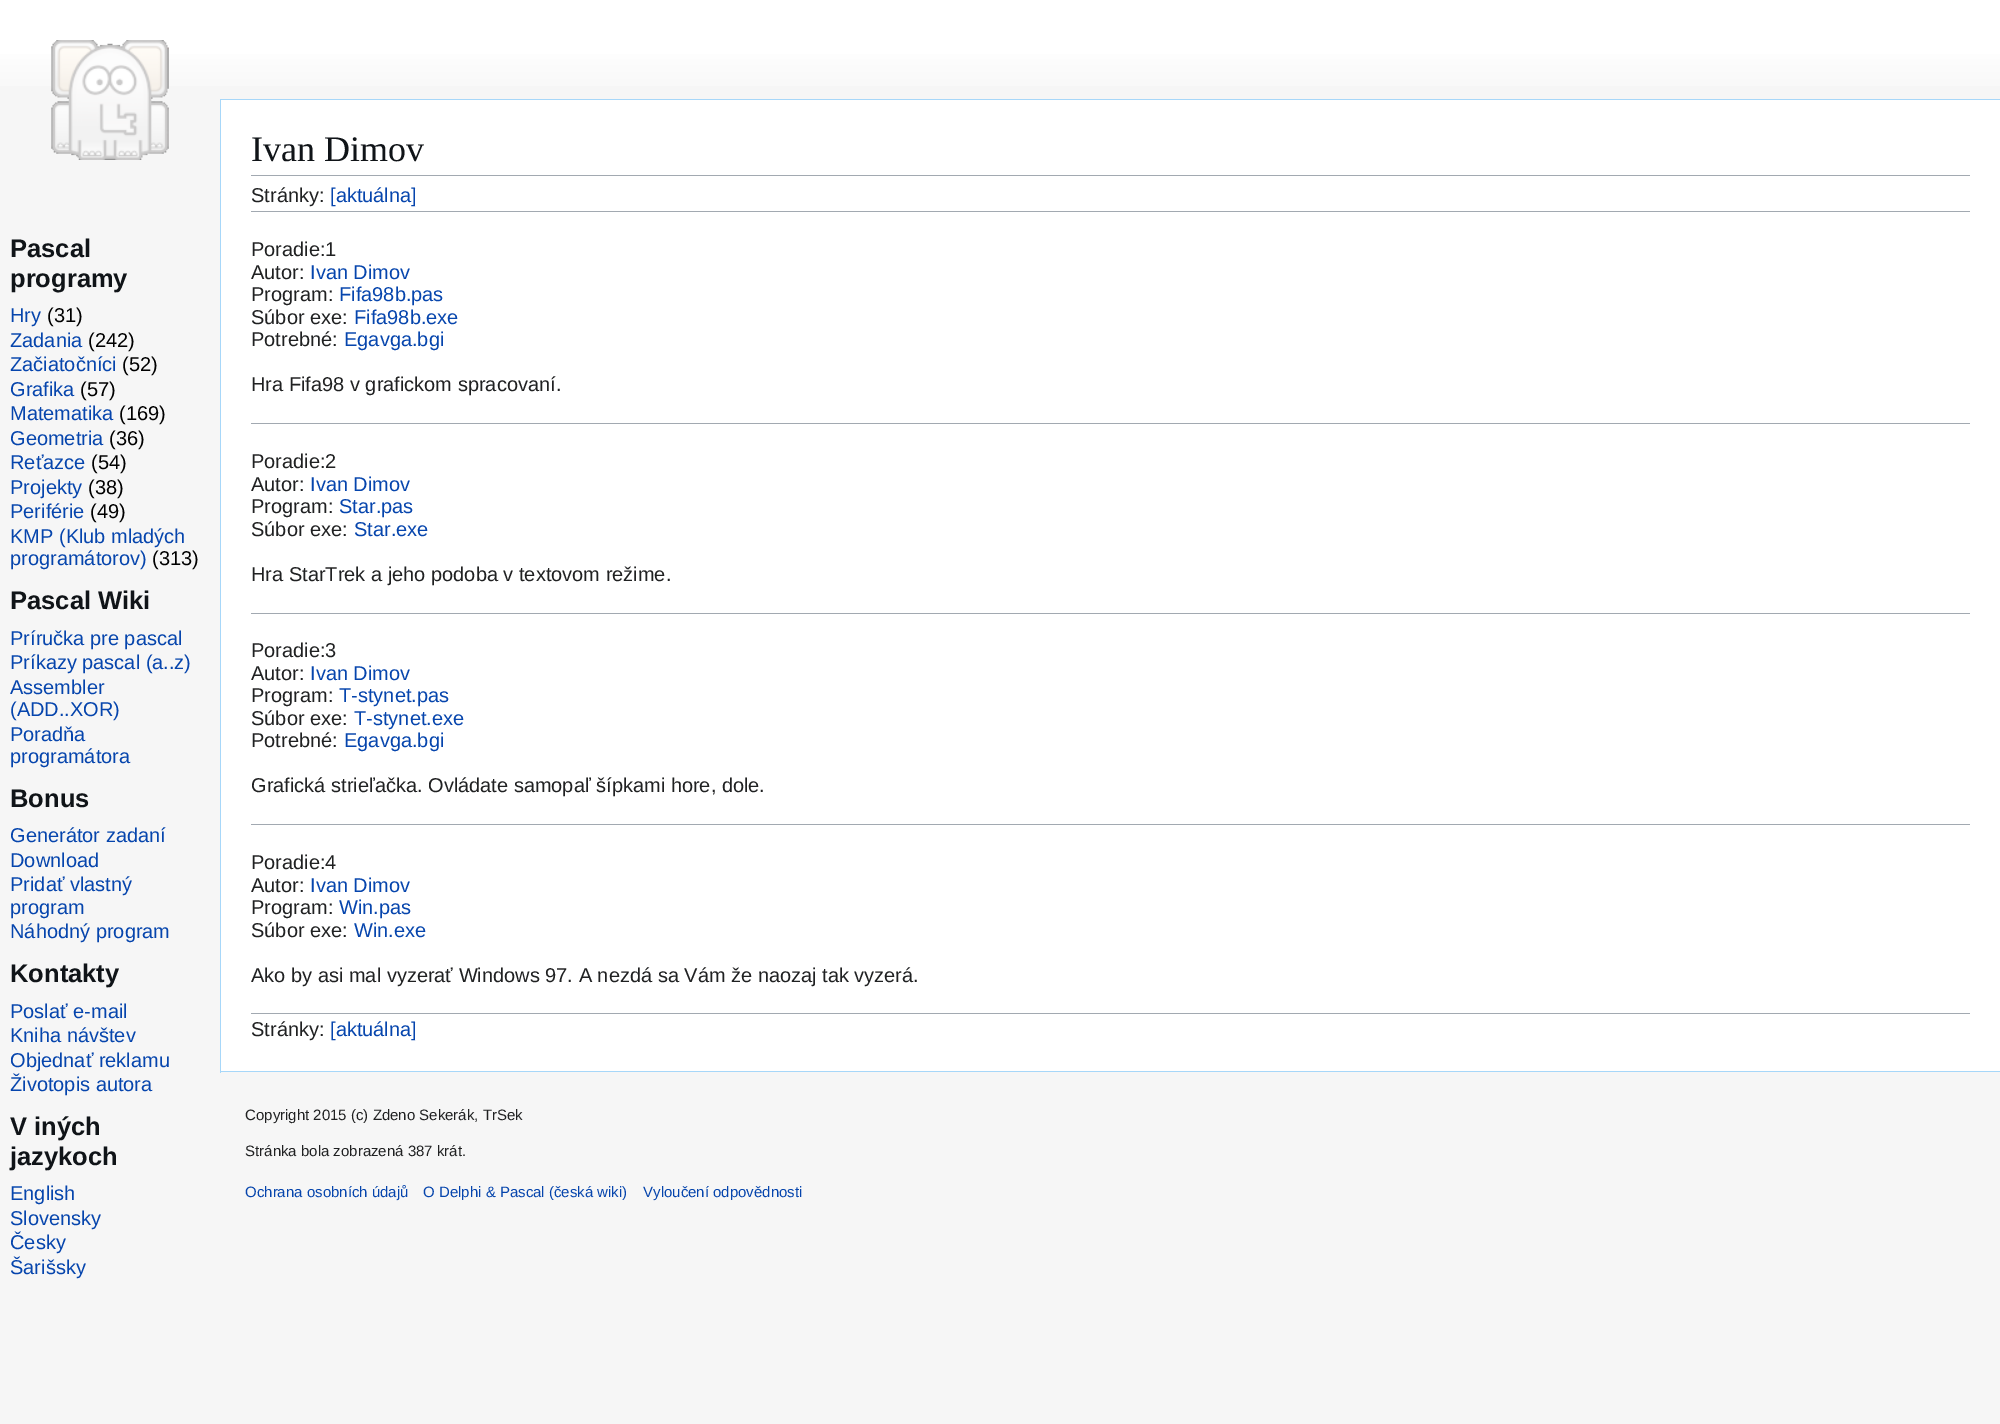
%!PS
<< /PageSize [2000 1424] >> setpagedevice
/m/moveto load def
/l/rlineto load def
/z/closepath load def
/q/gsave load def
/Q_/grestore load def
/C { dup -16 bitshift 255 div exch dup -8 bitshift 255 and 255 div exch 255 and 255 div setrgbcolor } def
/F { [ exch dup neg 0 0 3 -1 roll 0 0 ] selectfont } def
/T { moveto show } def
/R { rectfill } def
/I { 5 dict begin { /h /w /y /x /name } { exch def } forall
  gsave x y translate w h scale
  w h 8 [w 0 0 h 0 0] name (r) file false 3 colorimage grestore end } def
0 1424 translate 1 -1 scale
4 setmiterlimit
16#F6F6F6 C
0 0 2000 1424 R
q 0 0 m 2000 0 l 0 86 l -2000 0 l z clip newpath
<< /ShadingType 2 /ColorSpace /DeviceRGB /Coords [1000 0 1000 100] /Extend [true true] /Function << /FunctionType 3 /Domain [0 1] /Functions [<< /FunctionType 2 /Domain [0 1] /C0 [1 1 1] /C1 [1 1 1] /N 1 >> << /FunctionType 2 /Domain [0 1] /C0 [1 1 1] /C1 [.965 .965 .965] /N 1 >>] /Bounds [.5] /Encode [0 1 0 1] >> >> shfill Q_
(1.rgb) 51 40 118 120 I
/LiberationSans-Bold 25.5 F
16#101418 C
(Pascal) 10 257 T
(programy) 10 287 T
/LiberationSans-Regular 20 F
16#0645AD C
(Hry) 10 322 T
16#000000 C
(\(31\)) 47 322 T
16#0645AD C
(Zadania) 10 347 T
16#000000 C
(\(242\)) 88 347 T
16#0645AD C
(Začiatočníci) 10 371 T
16#000000 C
(\(52\)) 122 371 T
16#0645AD C
(Grafika) 10 396 T
16#000000 C
(\(57\)) 80 396 T
16#0645AD C
(Matematika) 10 420 T
16#000000 C
(\(169\)) 119 420 T
16#0645AD C
(Geometria) 10 445 T
16#000000 C
(\(36\)) 109 445 T
16#0645AD C
(Reťazce) 10 469 T
16#000000 C
(\(54\)) 91 469 T
16#0645AD C
(Projekty) 10 494 T
16#000000 C
(\(38\)) 88 494 T
16#0645AD C
(Periférie) 10 518 T
16#000000 C
(\(49\)) 90 518 T
16#0645AD C
(KMP \(Klub mladých) 10 543 T
(programátorov\)) 10 565 T
16#000000 C
(\(313\)) 152 565 T
/LiberationSans-Bold 25.5 F
16#101418 C
(Pascal Wiki) 10 609 T
/LiberationSans-Regular 20 F
16#0645AD C
(Príručka pre pascal) 10 645 T
(Príkazy pascal \(a..z\)) 10 669 T
(Assembler) 10 694 T
(\(ADD..XOR\)) 10 716 T
(Poradňa) 10 741 T
(programátora) 10 763 T
/LiberationSans-Bold 25.5 F
16#101418 C
(Bonus) 10 807 T
/LiberationSans-Regular 20 F
16#0645AD C
(Generátor zadaní) 10 842 T
(Download) 10 867 T
(Pridať vlastný) 10 891 T
(program) 10 914 T
(Náhodný program) 10 938 T
/LiberationSans-Bold 25.5 F
16#101418 C
(Kontakty) 10 982 T
/LiberationSans-Regular 20 F
16#0645AD C
(Poslať e-mail) 10 1018 T
(Kniha návštev) 10 1042 T
(Objednať reklamu) 10 1067 T
(Životopis autora) 10 1091 T
/LiberationSans-Bold 25.5 F
16#101418 C
(V iných) 10 1135 T
(jazykoch) 10 1165 T
/LiberationSans-Regular 20 F
16#0645AD C
(English) 10 1200 T
(Slovensky) 10 1225 T
(Česky) 10 1249 T
(Šarišsky) 10 1274 T
16#FFFFFF C
221 100 1779 971 R
16#A7D7F9 C
220 99 1780 1 R
220 1071 1780 1 R
220 99 1 974 R
16#A2A9B1 C
251 175 1719 1 R
/LiberationSerif-Regular 36 F
16#101418 C
(Ivan Dimov) 251 161 T
/LiberationSans-Regular 20 F
16#202122 C
(Stránky:) 251 202 T
16#0645AD C
([aktuálna]) 330 202 T
16#A2A9B1 C
251 211 1719 1 R
16#202122 C
(Poradie:1) 251 256 T
(Autor:) 251 279 T
16#0645AD C
(Ivan Dimov) 310 279 T
16#202122 C
(Program:) 251 301 T
16#0645AD C
(Fifa98b.pas) 339 301 T
16#202122 C
(Súbor exe:) 251 324 T
16#0645AD C
(Fifa98b.exe) 354 324 T
16#202122 C
(Potrebné:) 251 346 T
16#0645AD C
(Egavga.bgi) 344 346 T
16#202122 C
(Hra Fifa98 v grafickom spracovaní.) 251 391 T
16#A2A9B1 C
251 423 1719 1 R
16#202122 C
(Poradie:2) 251 468 T
(Autor:) 251 491 T
16#0645AD C
(Ivan Dimov) 310 491 T
16#202122 C
(Program:) 251 513 T
16#0645AD C
(Star.pas) 339 513 T
16#202122 C
(Súbor exe:) 251 536 T
16#0645AD C
(Star.exe) 354 536 T
16#202122 C
(Hra StarTrek a jeho podoba v textovom režime.) 251 581 T
16#A2A9B1 C
251 613 1719 1 R
16#202122 C
(Poradie:3) 251 657 T
(Autor:) 251 680 T
16#0645AD C
(Ivan Dimov) 310 680 T
16#202122 C
(Program:) 251 702 T
16#0645AD C
(T-stynet.pas) 339 702 T
16#202122 C
(Súbor exe:) 251 725 T
16#0645AD C
(T-stynet.exe) 354 725 T
16#202122 C
(Potrebné:) 251 747 T
16#0645AD C
(Egavga.bgi) 344 747 T
16#202122 C
(Grafická strieľačka. Ovládate samopaľ šípkami hore, dole.) 251 792 T
16#A2A9B1 C
251 824 1719 1 R
16#202122 C
(Poradie:4) 251 869 T
(Autor:) 251 892 T
16#0645AD C
(Ivan Dimov) 310 892 T
16#202122 C
(Program:) 251 914 T
16#0645AD C
(Win.pas) 339 914 T
16#202122 C
(Súbor exe:) 251 937 T
16#0645AD C
(Win.exe) 354 937 T
16#202122 C
(Ako by asi mal vyzerať Windows 97. A nezdá sa Vám že naozaj tak vyzerá.) 251 982 T
16#A2A9B1 C
251 1013 1719 1 R
16#202122 C
(Stránky:) 251 1036 T
16#0645AD C
([aktuálna]) 330 1036 T
/LiberationSans-Regular 15 F
16#202122 C
(Copyright 2015 \(c\) Zdeno Sekerák, TrSek) 245 1120 T
(Stránka bola zobrazená 387 krát.) 245 1156 T
16#0645AD C
(Ochrana osobních údajů) 245 1197 T
(O Delphi & Pascal \(česká wiki\)) 423 1197 T
(Vyloučení odpovědnosti) 643 1197 T
showpage
